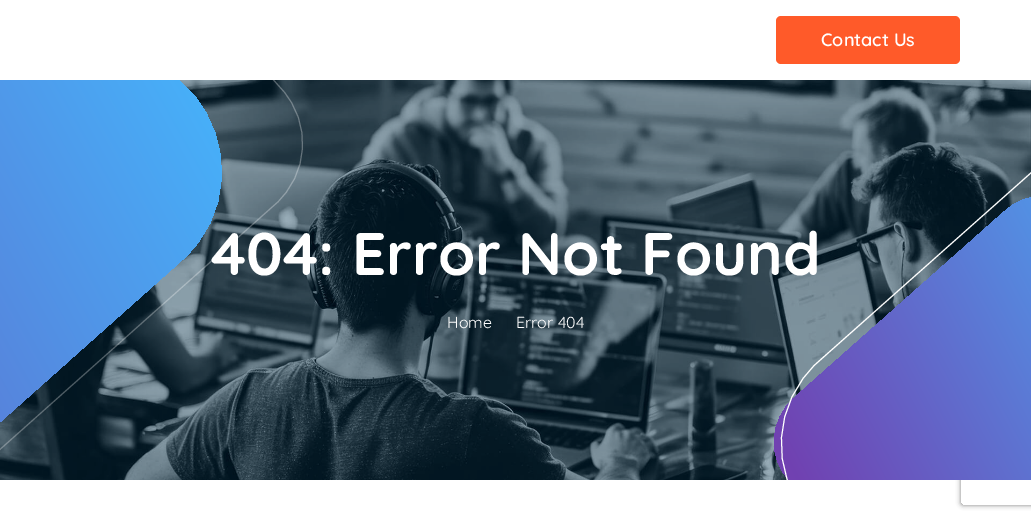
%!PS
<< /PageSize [1031 519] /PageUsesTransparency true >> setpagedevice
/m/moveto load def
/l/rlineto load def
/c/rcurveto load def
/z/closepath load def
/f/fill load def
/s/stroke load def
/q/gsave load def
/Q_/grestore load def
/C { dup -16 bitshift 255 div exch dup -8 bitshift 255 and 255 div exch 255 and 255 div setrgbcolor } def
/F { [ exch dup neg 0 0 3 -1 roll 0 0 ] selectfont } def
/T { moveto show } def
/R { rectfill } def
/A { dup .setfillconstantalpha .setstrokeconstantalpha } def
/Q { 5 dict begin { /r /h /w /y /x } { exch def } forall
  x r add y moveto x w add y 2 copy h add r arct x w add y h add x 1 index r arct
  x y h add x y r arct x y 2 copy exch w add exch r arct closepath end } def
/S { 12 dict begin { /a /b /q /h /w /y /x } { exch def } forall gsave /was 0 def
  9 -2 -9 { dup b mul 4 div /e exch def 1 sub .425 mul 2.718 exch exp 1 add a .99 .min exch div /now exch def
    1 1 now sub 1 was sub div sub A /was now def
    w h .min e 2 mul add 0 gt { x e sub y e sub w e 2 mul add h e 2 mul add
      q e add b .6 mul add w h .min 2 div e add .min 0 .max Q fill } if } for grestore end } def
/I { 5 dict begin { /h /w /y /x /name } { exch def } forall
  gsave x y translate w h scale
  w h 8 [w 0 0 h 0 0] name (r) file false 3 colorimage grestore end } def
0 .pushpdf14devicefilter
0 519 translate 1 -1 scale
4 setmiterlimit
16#FFFFFF C
0 0 1031 519 R
16#FF5A29 C
776 16 184 48 5 Q f
/Quicksand-SemiBold 18 F
16#FFFFFF C
(Contact Us) 821 46 T
q
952 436 m 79 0 l 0 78 l -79 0 l z 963 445 m 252 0 l 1 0 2 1 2 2 c 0 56 l 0 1 -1 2 -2 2 c -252 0 l -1 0 -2 -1 -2 -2 c 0 -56 l 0 -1 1 -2 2 -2 c z eoclip newpath
16#808080 C
961 445 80 60 2 2.5 1 S
Q_
(1.rgb) 0 80 1031 400 I
q
0 80 222 400 rectclip
q -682 187 m 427 -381 l 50 -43 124 -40 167 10 c 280 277 l 43 49 39 124 -10 167 c -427 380 l -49 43 -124 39 -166 -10 c -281 -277 l -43 -49 -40 -124 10 -166 c z clip newpath
<< /ShadingType 2 /ColorSpace /DeviceRGB /Coords [111 -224 -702 232] /Extend [true true] /Function << /FunctionType 2 /Domain [0 1] /C0 [.263 .729 1] /C1 [.443 .255 .694] /N 1 >> >> shfill Q_
Q_
q
0 80 304 400 rectclip
0.3 A
-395 49.5 m 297.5 -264.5 l 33.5 -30 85 -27 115 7 c 264.5 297.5 l 30 33.5 27 85 -7 115 c -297 264.5 l -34 30 -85.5 27 -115.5 -7 c -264.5 -297 l -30 -34 -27 -85.5 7 -115.5 c z s
Q_
q
774 196 257 284 rectclip
q 794 398 m 211 -187 l 24 -22 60 -19 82 5 c 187 211 l 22 24 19 60 -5 82 c -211 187 l -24 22 -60 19 -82 -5 c -187 -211 l -22 -24 -19 -60 5 -82 c z clip newpath
<< /ShadingType 2 /ColorSpace /DeviceRGB /Coords [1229 196 774 438] /Extend [true true] /Function << /FunctionType 2 /Domain [0 1] /C0 [.263 .729 1] /C1 [.443 .255 .694] /N 1 >> >> shfill Q_
Q_
q
780 80 251 400 rectclip
818 362 m 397.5 -353 l 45 -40.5 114 -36 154.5 9 c 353 397.5 l 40 45 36 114 -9.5 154.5 c -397 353 l -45 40 -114 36 -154.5 -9.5 c -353 -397 l -40.5 -45 -36 -114 9 -154.5 c z s
Q_
/Quicksand-Bold 60 F
(404: Error Not Found) 211 275 T
/Quicksand-Regular 16 F
(Home) 447 328 T
(Error 404) 516 328 T
.poppdf14devicefilter showpage
